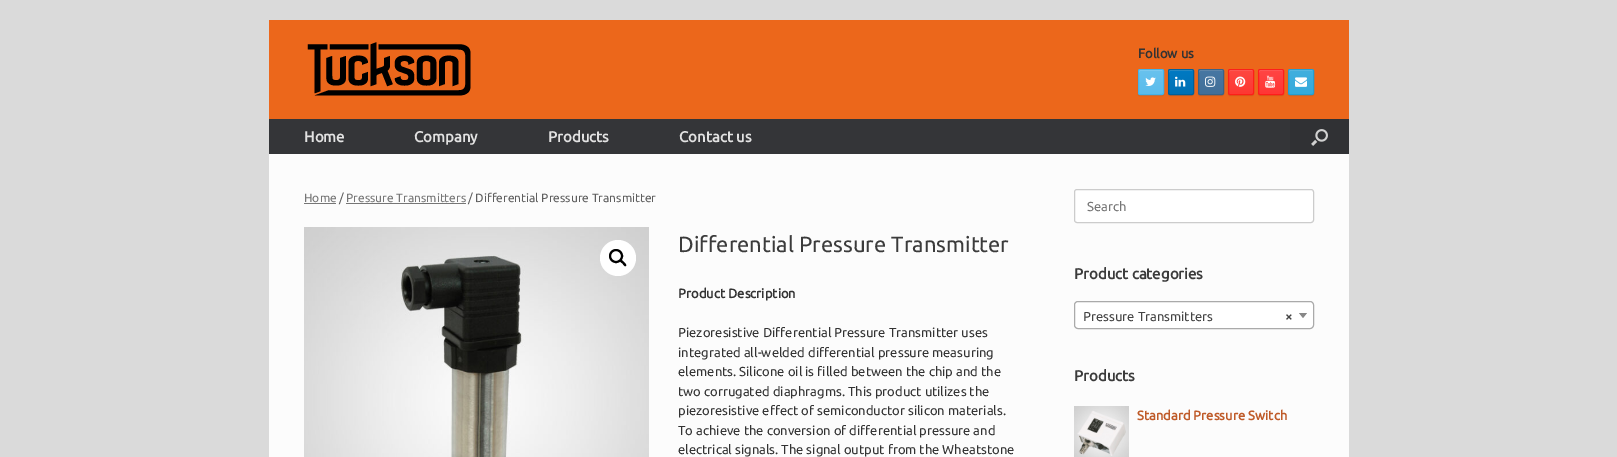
%!PS
<< /PageSize [1617 457] /PageUsesTransparency true >> setpagedevice
/m/moveto load def
/l/rlineto load def
/c/rcurveto load def
/z/closepath load def
/f/fill load def
/s/stroke load def
/q/gsave load def
/Q_/grestore load def
/w/setlinewidth load def
/C { dup -16 bitshift 255 div exch dup -8 bitshift 255 and 255 div exch 255 and 255 div setrgbcolor } def
/F { [ exch dup neg 0 0 3 -1 roll 0 0 ] selectfont } def
/T { moveto show } def
/R { rectfill } def
/A { dup .setfillconstantalpha .setstrokeconstantalpha } def
/O { newpath 0 360 arc closepath } def
/Q { 5 dict begin { /r /h /w /y /x } { exch def } forall
  x r add y moveto x w add y 2 copy h add r arct x w add y h add x 1 index r arct
  x y h add x y r arct x y 2 copy exch w add exch r arct closepath end } def
/S { 12 dict begin { /a /b /q /h /w /y /x } { exch def } forall gsave /was 0 def
  9 -2 -9 { dup b mul 4 div /e exch def 1 sub .425 mul 2.718 exch exp 1 add a .99 .min exch div /now exch def
    1 1 now sub 1 was sub div sub A /was now def
    w h .min e 2 mul add 0 gt { x e sub y e sub w e 2 mul add h e 2 mul add
      q e add b .6 mul add w h .min 2 div e add .min 0 .max Q fill } if } for grestore end } def
/I { 5 dict begin { /h /w /y /x /name } { exch def } forall
  gsave x y translate w h scale
  w h 8 [w 0 0 h 0 0] name (r) file false 3 colorimage grestore end } def
0 .pushpdf14devicefilter
0 457 translate 1 -1 scale
4 setmiterlimit
16#DADADA C
0 0 1617 457 R
16#EC671B C
269 20 1080 99 R
(1.rgb) 307 42 164 54 I
/Ubuntu-Bold 13 F
16#333333 C
(Follow us) 1138 58 T
16#000000 C
1138 70 26 26 2 .5 .1 S
q
1138 69 26 26 2 Q clip newpath
q 1138 70 m 26 0 l 0 24 l -26 0 l z clip newpath
<< /ShadingType 2 /ColorSpace /DeviceRGB /Coords [1139 94 1139 70] /Extend [true true] /Function << /FunctionType 2 /Domain [0 1] /C0 [.357 .737 .925] /C1 [.412 .761 .933] /N 1 >> >> shfill Q_
Q_
16#8FD1F2 C
1140 71 m 23 0 l 0 -.5 -.5 -1 -1 -1 c -22 0 l -.5 0 -1 .5 -1 1 c 0 2 l 0 -1 .5 -2 1 -2 c z f
16#44B3E9 C
1138.5 69.5 25 25 1.5 Q s
(2.rgb) 1145 77 11 9 I
16#000000 C
1168 70 26 26 2 .5 .1 S
q
1168 69 26 26 2 Q clip newpath
q 1168 70 m 26 0 l 0 24 l -26 0 l z clip newpath
<< /ShadingType 2 /ColorSpace /DeviceRGB /Coords [1169 94 1169 70] /Extend [true true] /Function << /FunctionType 2 /Domain [0 1] /C0 [0 .439 .706] /C1 [0 .478 .765] /N 1 >> >> shfill Q_
Q_
16#3395CF C
1170 71 m 23 0 l 0 -.5 -.5 -1 -1 -1 c -22 0 l -.5 0 -1 .5 -1 1 c 0 2 l 0 -1 .5 -2 1 -2 c z f
16#00609B C
1168.5 69.5 25 25 1.5 Q s
(3.rgb) 1175 76 11 11 I
16#000000 C
1198 70 26 26 2 .5 .1 S
q
1198 69 26 26 2 Q clip newpath
q 1198 70 m 26 0 l 0 24 l -26 0 l z clip newpath
<< /ShadingType 2 /ColorSpace /DeviceRGB /Coords [1199 94 1199 70] /Extend [true true] /Function << /FunctionType 2 /Domain [0 1] /C0 [.259 .435 .596] /C1 [.278 .467 .639] /N 1 >> >> shfill Q_
Q_
16#6C92B5 C
1200 71 m 23 0 l 0 -.5 -.5 -1 -1 -1 c -22 0 l -.5 0 -1 .5 -1 1 c 0 2 l 0 -1 .5 -2 1 -2 c z f
16#3A6286 C
1198.5 69.5 25 25 1.5 Q s
(4.rgb) 1205 76 11 11 I
16#000000 C
1228 70 26 26 2 .5 .1 S
q
1228 69 26 26 2 Q clip newpath
q 1228 70 m 26 0 l 0 24 l -26 0 l z clip newpath
<< /ShadingType 2 /ColorSpace /DeviceRGB /Coords [1229 94 1229 70] /Extend [true true] /Function << /FunctionType 2 /Domain [0 1] /C0 [.992 .22 .196] /C1 [.992 .278 .255] /N 1 >> >> shfill Q_
Q_
16#FD6C67 C
1230 71 m 23 0 l 0 -.5 -.5 -1 -1 -1 c -22 0 l -.5 0 -1 .5 -1 1 c 0 2 l 0 -1 .5 -2 1 -2 c z f
16#FD1F19 C
1228.5 69.5 25 25 1.5 Q s
(5.rgb) 1235 76 11 11 I
16#000000 C
1258 70 26 26 2 .5 .1 S
q
1258 69 26 26 2 Q clip newpath
q 1258 70 m 26 0 l 0 24 l -26 0 l z clip newpath
<< /ShadingType 2 /ColorSpace /DeviceRGB /Coords [1259 94 1259 70] /Extend [true true] /Function << /FunctionType 2 /Domain [0 1] /C0 [1 .212 .208] /C1 [1 .271 .267] /N 1 >> >> shfill Q_
Q_
16#FF6A69 C
1260 71 m 23 0 l 0 -.5 -.5 -1 -1 -1 c -22 0 l -.5 0 -1 .5 -1 1 c 0 2 l 0 -1 .5 -2 1 -2 c z f
16#FF1D1B C
1258.5 69.5 25 25 1.5 Q s
(6.rgb) 1265 75 11 13 I
16#000000 C
1288 70 26 26 2 .5 .1 S
q
1288 69 26 26 2 Q clip newpath
q 1288 70 m 26 0 l 0 24 l -26 0 l z clip newpath
<< /ShadingType 2 /ColorSpace /DeviceRGB /Coords [1289 94 1289 70] /Extend [true true] /Function << /FunctionType 2 /Domain [0 1] /C0 [.204 .667 .863] /C1 [.255 .686 .871] /N 1 >> >> shfill Q_
Q_
16#67BFE5 C
1290 71 m 23 0 l 0 -.5 -.5 -1 -1 -1 c -22 0 l -.5 0 -1 .5 -1 1 c 0 2 l 0 -1 .5 -2 1 -2 c z f
16#249ED2 C
1288.5 69.5 25 25 1.5 Q s
(7.rgb) 1295 77 12 10 I
16#343538 C
269 119 1021 35 R
/Ubuntu-Bold 15 F
16#E2E2E2 C
(Home) 304 142 T
(Company) 414 142 T
(Products) 548 142 T
(Contact us) 679 142 T
16#303134 C
1290 119 59 35 R
(8.rgb) 1311 129 17 17 I
16#FCFCFC C
269 154 1080 303 R
/Ubuntu-Regular 12 F
16#767676 C
(Home) 304 202 T
304 203 32 1 R
16#5E5E5E C
(/) 339 202 T
16#767676 C
(Pressure Transmitters) 346 202 T
346 203 120 1 R
16#5E5E5E C
(/ Differential Pressure Transmitter) 468 202 T
(9.rgb) 304 227 345 230 I
16#FFFFFF C
618 258 18 O f
16#000000 C
2 w
616 256 6 O s
620 260 m 1.5 -1 3 1.5 4 2 c .5 1 3 2.5 2 4 c -1.5 1 -3 -2 -3.5 -2.5 c -.5 -.5 -3.5 -2 -2.5 -3.5 c z f
/Ubuntu-Regular 22 F
16#3B3B3B C
(Differential Pressure Transmitter) 678 252 T
/Ubuntu-Bold 13 F
16#333333 C
(Product Description) 678 298 T
/Ubuntu-Regular 13 F
(Piezoresistive Differential Pressure Transmitter uses) 678 337 T
(integrated all-welded differential pressure measuring) 678 357 T
(elements. Silicone oil is filled between the chip and the) 678 376 T
(two corrugated diaphragms. This product utilizes the) 678 396 T
(piezoresistive effect of semiconductor silicon materials.) 678 415 T
(To achieve the conversion of differential pressure and) 678 435 T
(electrical signals. The signal output from the Wheatstone) 678 454 T
16#FFFFFF C
1074.5 189.5 239 33 2.5 Q q f Q_
16#CCCCCC C
1 w
s
16#767676 C
(Search) 1087 211 T
/Ubuntu-Bold 15 F
16#3B3B3B C
(Product categories) 1074 279 T
16#FFFFFF C
1074.5 301.5 239 27 3.5 Q q f Q_
16#AAAAAA C
s
/Ubuntu-Regular 13 F
16#444444 C
(Pressure Transmitters) 1083 321 T
/Ubuntu-Bold 13 F
(×) 1285 321 T
16#888888 C
1299 313 m 8 0 l -4 5 l z f
/Ubuntu-Bold 15 F
16#3B3B3B C
(Products) 1074 381 T
(10.rgb) 1074 406 55 51 I
/Ubuntu-Bold 13 F
16#BF5A28 C
(Standard Pressure Switch) 1137 420 T
.poppdf14devicefilter showpage
